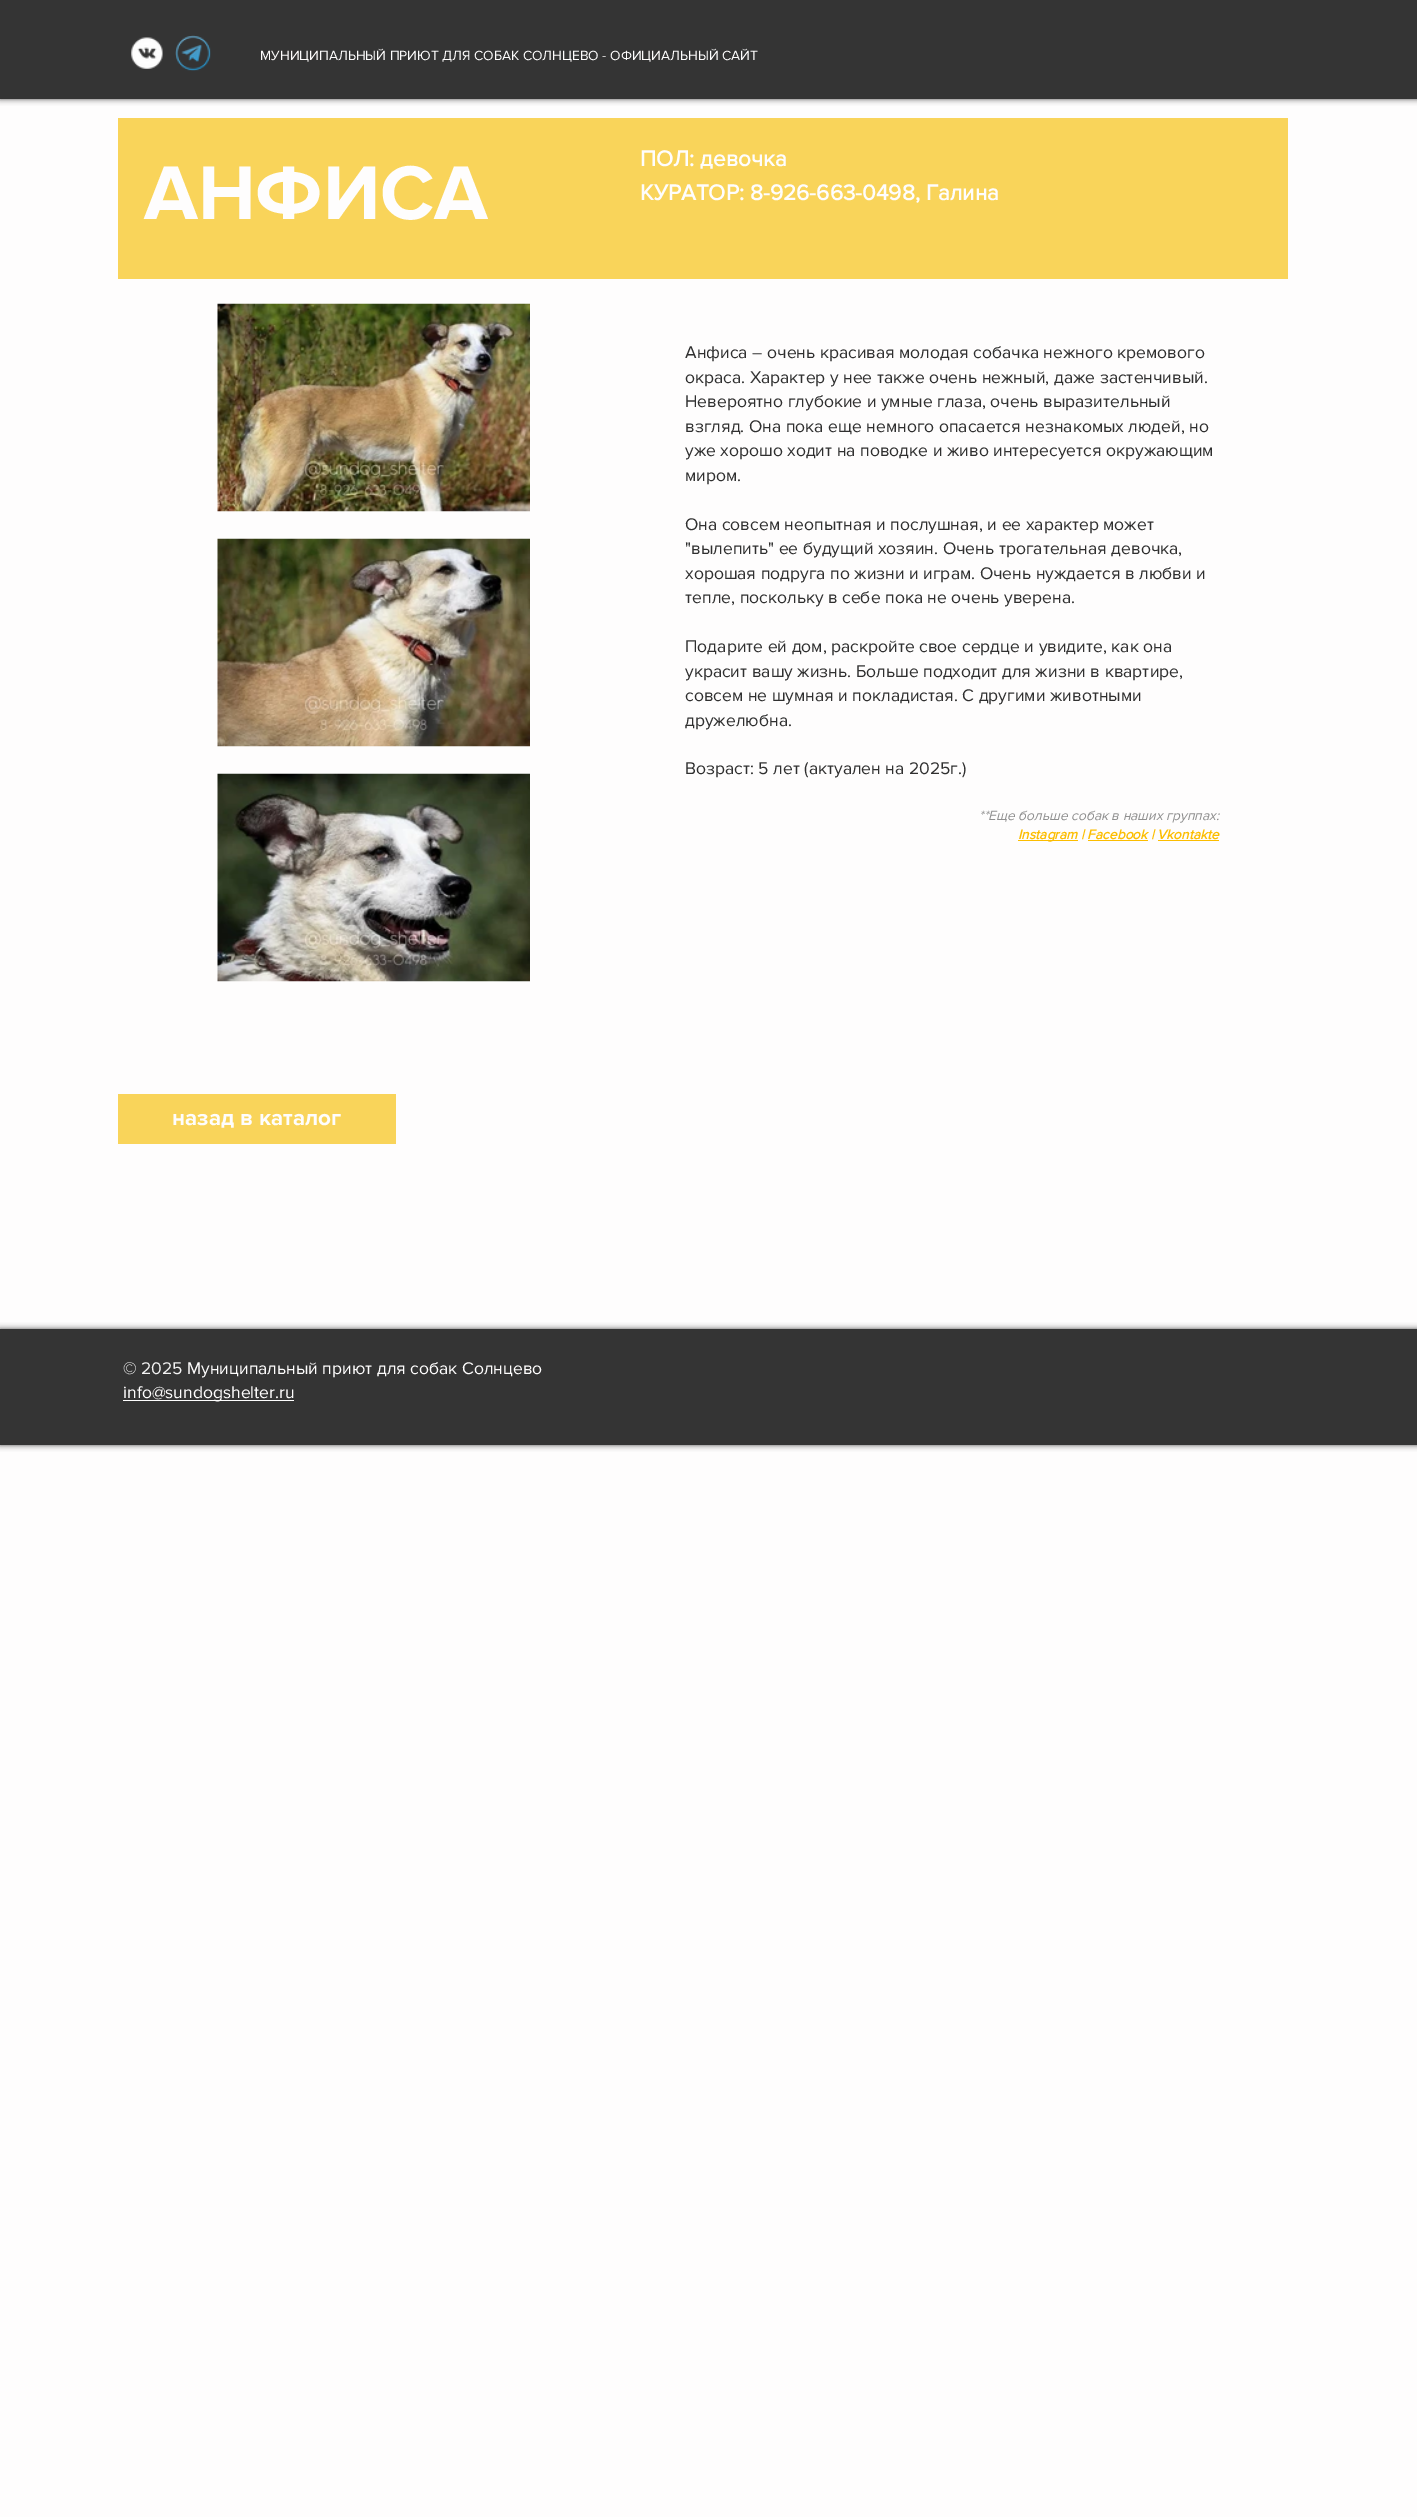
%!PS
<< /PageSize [1417 2517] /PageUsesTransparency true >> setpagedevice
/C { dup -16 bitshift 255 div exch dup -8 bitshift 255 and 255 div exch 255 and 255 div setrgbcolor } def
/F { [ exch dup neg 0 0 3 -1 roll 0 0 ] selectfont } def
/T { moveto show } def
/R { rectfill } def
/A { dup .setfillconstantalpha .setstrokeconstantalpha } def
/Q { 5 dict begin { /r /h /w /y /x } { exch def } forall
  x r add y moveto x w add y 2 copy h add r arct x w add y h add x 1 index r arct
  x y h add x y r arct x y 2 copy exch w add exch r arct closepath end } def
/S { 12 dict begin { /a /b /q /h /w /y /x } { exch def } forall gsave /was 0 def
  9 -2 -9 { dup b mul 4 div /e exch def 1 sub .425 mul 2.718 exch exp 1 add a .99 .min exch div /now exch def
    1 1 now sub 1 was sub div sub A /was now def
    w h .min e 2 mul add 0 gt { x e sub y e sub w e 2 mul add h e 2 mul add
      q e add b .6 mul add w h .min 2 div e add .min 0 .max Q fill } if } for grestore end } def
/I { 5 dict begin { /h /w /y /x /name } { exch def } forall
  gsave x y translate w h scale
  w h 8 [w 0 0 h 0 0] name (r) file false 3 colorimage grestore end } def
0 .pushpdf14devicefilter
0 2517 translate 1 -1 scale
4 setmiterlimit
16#FEFDFD C
0 0 1417 2517 R
16#000000 C
0 0 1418 99 0 3 .7 S
16#343434 C
0 0 1417 99 R
(1.rgb) 131 37 32 32 I
(2.rgb) 175 35 36 36 I
/ProximaNova-Regular 13.75 F
16#FEFDFD C
(МУНИЦИПАЛЬНЫЙ ПРИЮТ ДЛЯ СОБАК СОЛНЦЕВО - ОФИЦИАЛЬНЫЙ САЙТ) 260 60 T
16#F9D45A C
118 118 1170 161 R
/ProximaNova-Bold 78.75 F
16#FEFDFD C
(АНФИСА) 144 219 T
/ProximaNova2-Bold 22.5 F
(ПОЛ: девочка) 640 166 T
(КУРАТОР: 8-926-663-0498, Галина) 640 200 T
(3.rgb) 217 303 313 209 I
(4.rgb) 217 538 313 209 I
(5.rgb) 217 773 313 209 I
/ProximaNova-Regular 17.5 F
16#303030 C
(Анфиса – очень красивая молодая собачка нежного кремового) 685 358 T
(окраса. Характер у нее также очень нежный, даже застенчивый.) 685 383 T
(Невероятно глубокие и умные глаза, очень выразительный) 685 407 T
(взгляд. Она пока еще немного опасается незнакомых людей, но) 685 432 T
(уже хорошо ходит на поводке и живо интересуется окружающим) 685 456 T
(миром.) 685 481 T
(Она совсем неопытная и послушная, и ее характер может) 685 530 T
("вылепить" ее будущий хозяин. Очень трогательная девочка,) 685 554 T
(хорошая подруга по жизни и играм. Очень нуждается в любви и) 685 579 T
(тепле, поскольку в себе пока не очень уверена.) 685 603 T
(Подарите ей дом, раскройте свое сердце и увидите, как она) 685 652 T
(украсит вашу жизнь. Больше подходит для жизни в квартире,) 685 677 T
(совсем не шумная и покладистая. С другими животными) 685 701 T
(дружелюбна.) 685 726 T
(Возраст: 5 лет \(актуален на 2025г.\)) 685 774 T
/ProximaNova-Italic 13.75 F
16#8F8F8F C
(**Еще больше собак в наших группах:) 979 820 T
16#FCBD00 C
1018 840 60 1 R
/ProximaNova-BoldItalic 13.75 F
(Instagram | Facebook | Vkontakte) 1018 839 T
1088 840 60 1 R
1158 840 61 1 R
16#F9D45A C
118 1094 278 50 R
/ProximaNova-Bold 22.5 F
16#FEFDFD C
(назад в каталог) 172 1125 T
16#000000 C
0 1329 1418 116 0 3 .7 S
16#343434 C
0 1329 1417 116 R
/ProximaNova-Regular 17.5 F
16#F3F3F3 C
(© 2025) 123 1374 T
16#FEFDFD C
(Муниципальный приют для собак Солнцево) 187 1374 T
16#FFFFFF C
123 1400 171 1 R
16#FEFDFD C
(info@sundogshelter.ru) 123 1398 T
.poppdf14devicefilter showpage
